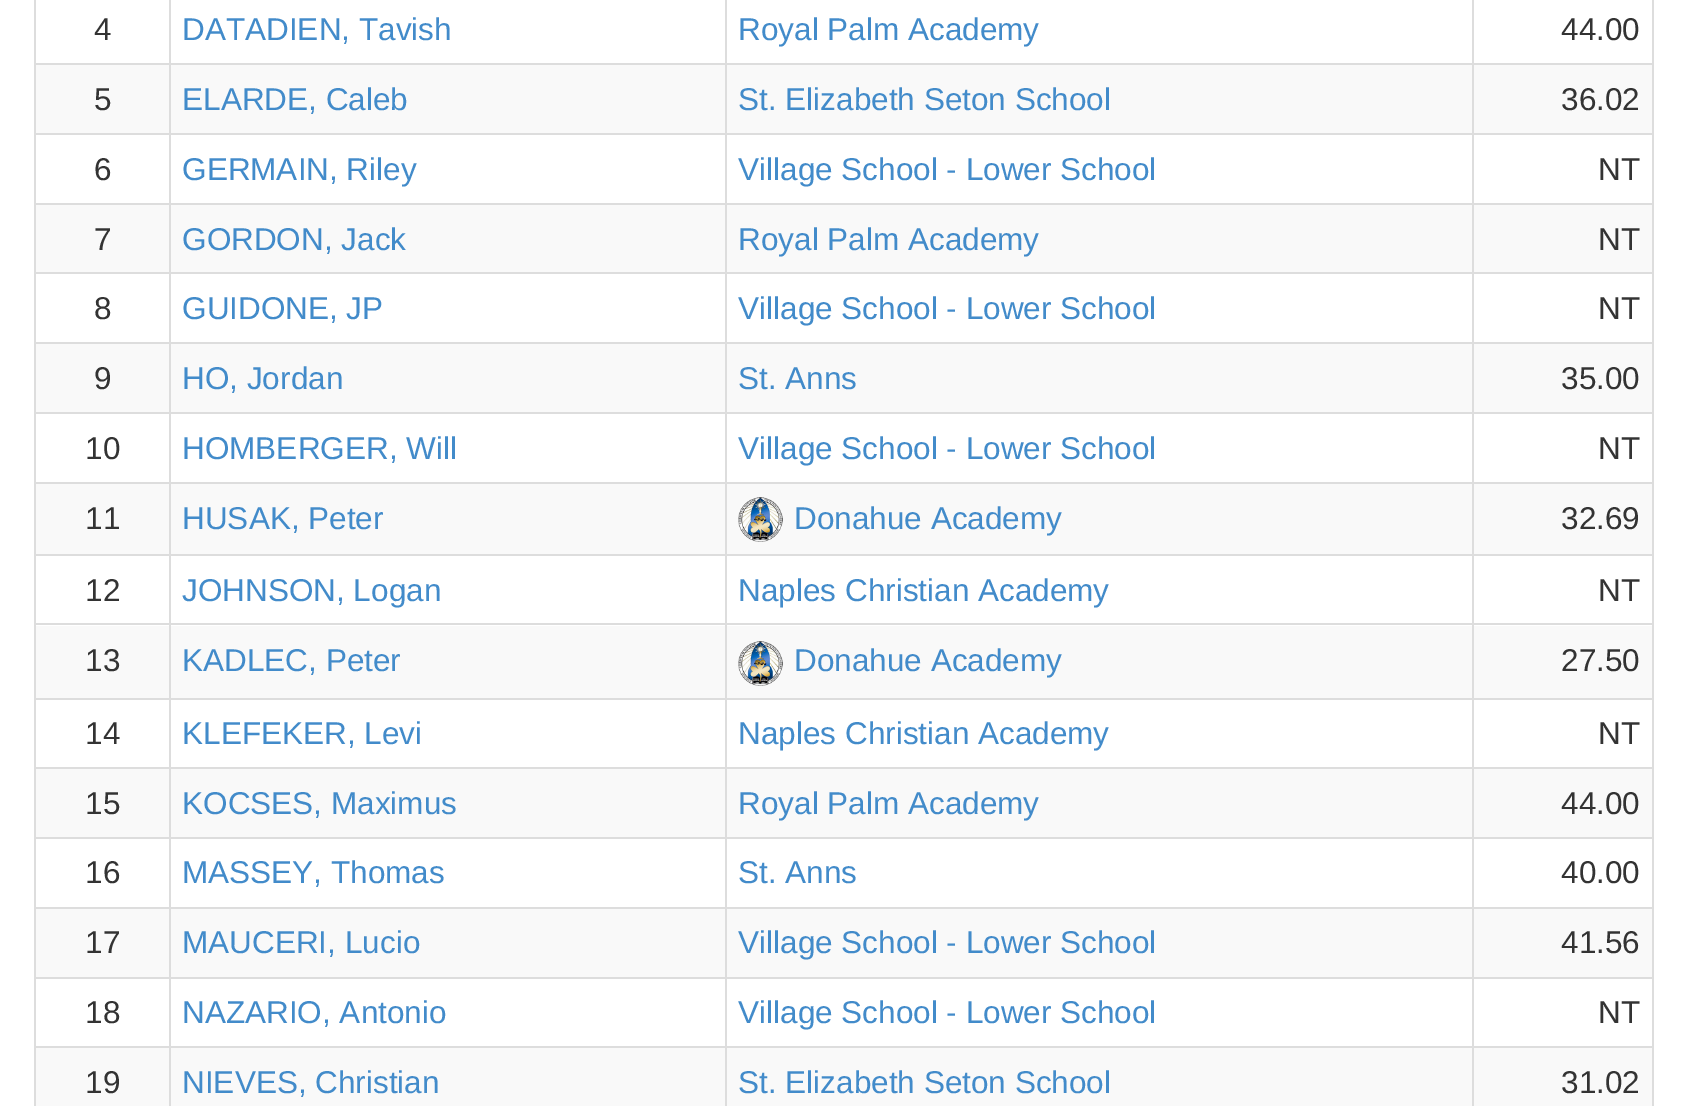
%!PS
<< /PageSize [1687 1106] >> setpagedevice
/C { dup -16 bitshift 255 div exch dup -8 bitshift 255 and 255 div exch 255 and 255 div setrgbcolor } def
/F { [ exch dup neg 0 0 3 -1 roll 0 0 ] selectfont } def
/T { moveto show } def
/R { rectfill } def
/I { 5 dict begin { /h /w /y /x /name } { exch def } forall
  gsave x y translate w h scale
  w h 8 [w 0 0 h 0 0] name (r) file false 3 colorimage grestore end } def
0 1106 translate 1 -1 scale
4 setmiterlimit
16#FFFFFF C
0 0 1687 1106 R
16#DDDDDD C
1652 0 2 1106 R
34 0 2 1106 R
/LiberationSans-Regular 31.5 F
16#333333 C
(4) 94 40 T
16#DDDDDD C
1472 63 182 2 R
1472 133 182 2 R
1472 203 182 2 R
1472 272 182 2 R
1472 342 182 2 R
1472 412 182 2 R
1472 482 182 2 R
1472 554 182 2 R
1472 623 182 2 R
1472 698 182 2 R
1472 767 182 2 R
1472 837 182 2 R
1472 907 182 2 R
1472 977 182 2 R
1472 1046 182 2 R
1472 1046 2 60 R
725 1046 749 2 R
1472 977 2 72 R
725 977 749 2 R
1472 907 2 72 R
725 907 749 2 R
1472 837 2 72 R
725 837 749 2 R
1472 767 2 72 R
725 767 749 2 R
1472 698 2 72 R
725 698 749 2 R
1472 623 2 77 R
725 623 749 2 R
1472 554 2 72 R
725 554 749 2 R
1472 482 2 74 R
725 482 749 2 R
1472 412 2 72 R
725 412 749 2 R
1472 342 2 72 R
725 342 749 2 R
1472 272 2 72 R
725 272 749 2 R
1472 203 2 72 R
725 203 749 2 R
1472 133 2 72 R
725 133 749 2 R
1472 63 2 72 R
725 63 749 2 R
725 1046 2 60 R
169 1046 558 2 R
725 977 2 72 R
169 977 558 2 R
725 907 2 72 R
169 907 558 2 R
725 837 2 72 R
169 837 558 2 R
725 767 2 72 R
169 767 558 2 R
725 698 2 72 R
169 698 558 2 R
725 623 2 77 R
169 623 558 2 R
725 554 2 72 R
169 554 558 2 R
725 482 2 74 R
169 482 558 2 R
725 412 2 72 R
169 412 558 2 R
725 342 2 72 R
169 342 558 2 R
725 272 2 72 R
169 272 558 2 R
725 203 2 72 R
169 203 558 2 R
725 133 2 72 R
169 133 558 2 R
725 63 2 72 R
169 63 558 2 R
169 1046 2 60 R
34 1046 137 2 R
169 977 2 72 R
34 977 137 2 R
169 907 2 72 R
34 907 137 2 R
169 837 2 72 R
34 837 137 2 R
169 767 2 72 R
34 767 137 2 R
169 698 2 72 R
34 698 137 2 R
169 623 2 77 R
34 623 137 2 R
169 554 2 72 R
34 554 137 2 R
169 482 2 74 R
34 482 137 2 R
169 412 2 72 R
34 412 137 2 R
169 342 2 72 R
34 342 137 2 R
169 272 2 72 R
34 272 137 2 R
169 203 2 72 R
34 203 137 2 R
169 133 2 72 R
34 133 137 2 R
169 63 2 72 R
34 63 137 2 R
169 0 2 65 R
16#428BCA C
(DATADIEN, Tavish) 182 40 T
16#DDDDDD C
725 0 2 65 R
16#428BCA C
(Royal Palm Academy) 738 40 T
16#DDDDDD C
1472 0 2 65 R
16#333333 C
(44.00) 1561 40 T
16#F9F9F9 C
36 65 133 68 R
16#333333 C
(5) 94 110 T
16#F9F9F9 C
171 65 554 68 R
16#428BCA C
(ELARDE, Caleb) 182 110 T
16#F9F9F9 C
727 65 745 68 R
16#428BCA C
(St. Elizabeth Seton School) 738 110 T
16#F9F9F9 C
1474 65 178 68 R
16#333333 C
(36.02) 1561 110 T
(6) 94 180 T
16#428BCA C
(GERMAIN, Riley) 182 180 T
(Village School - Lower School) 738 180 T
16#333333 C
(NT) 1598 180 T
16#F9F9F9 C
36 205 133 67 R
16#333333 C
(7) 94 250 T
16#F9F9F9 C
171 205 554 67 R
16#428BCA C
(GORDON, Jack) 182 250 T
16#F9F9F9 C
727 205 745 67 R
16#428BCA C
(Royal Palm Academy) 738 250 T
16#F9F9F9 C
1474 205 178 67 R
16#333333 C
(NT) 1598 250 T
(8) 94 319 T
16#428BCA C
(GUIDONE, JP) 182 319 T
(Village School - Lower School) 738 319 T
16#333333 C
(NT) 1598 319 T
16#F9F9F9 C
36 344 133 68 R
16#333333 C
(9) 94 389 T
16#F9F9F9 C
171 344 554 68 R
16#428BCA C
(HO, Jordan) 182 389 T
16#F9F9F9 C
727 344 745 68 R
16#428BCA C
(St. Anns) 738 389 T
16#F9F9F9 C
1474 344 178 68 R
16#333333 C
(35.00) 1561 389 T
(10) 85 459 T
16#428BCA C
(HOMBERGER, Will) 182 459 T
(Village School - Lower School) 738 459 T
16#333333 C
(NT) 1598 459 T
16#F9F9F9 C
36 484 133 70 R
16#333333 C
(11) 85 529 T
16#F9F9F9 C
171 484 554 70 R
16#428BCA C
(HUSAK, Peter) 182 529 T
16#F9F9F9 C
727 484 745 70 R
(1.rgb) 738 497 45 45 I
16#428BCA C
(Donahue Academy) 794 529 T
16#F9F9F9 C
1474 484 178 70 R
16#333333 C
(32.69) 1561 529 T
(12) 85 601 T
16#428BCA C
(JOHNSON, Logan) 182 601 T
(Naples Christian Academy) 738 601 T
16#333333 C
(NT) 1598 601 T
16#F9F9F9 C
36 626 133 72 R
16#333333 C
(13) 85 671 T
16#F9F9F9 C
171 626 554 72 R
16#428BCA C
(KADLEC, Peter) 182 671 T
16#F9F9F9 C
727 626 745 72 R
(2.rgb) 738 641 45 45 I
16#428BCA C
(Donahue Academy) 794 671 T
16#F9F9F9 C
1474 626 178 72 R
16#333333 C
(27.50) 1561 671 T
(14) 85 744 T
16#428BCA C
(KLEFEKER, Levi) 182 744 T
(Naples Christian Academy) 738 744 T
16#333333 C
(NT) 1598 744 T
16#F9F9F9 C
36 769 133 68 R
16#333333 C
(15) 85 814 T
16#F9F9F9 C
171 769 554 68 R
16#428BCA C
(KOCSES, Maximus) 182 814 T
16#F9F9F9 C
727 769 745 68 R
16#428BCA C
(Royal Palm Academy) 738 814 T
16#F9F9F9 C
1474 769 178 68 R
16#333333 C
(44.00) 1561 814 T
(16) 85 883 T
16#428BCA C
(MASSEY, Thomas) 182 883 T
(St. Anns) 738 883 T
16#333333 C
(40.00) 1561 883 T
16#F9F9F9 C
36 909 133 68 R
16#333333 C
(17) 85 953 T
16#F9F9F9 C
171 909 554 68 R
16#428BCA C
(MAUCERI, Lucio) 182 953 T
16#F9F9F9 C
727 909 745 68 R
16#428BCA C
(Village School - Lower School) 738 953 T
16#F9F9F9 C
1474 909 178 68 R
16#333333 C
(41.56) 1561 953 T
(18) 85 1023 T
16#428BCA C
(NAZARIO, Antonio) 182 1023 T
(Village School - Lower School) 738 1023 T
16#333333 C
(NT) 1598 1023 T
16#F9F9F9 C
36 1048 133 58 R
16#333333 C
(19) 85 1093 T
16#F9F9F9 C
171 1048 554 58 R
16#428BCA C
(NIEVES, Christian) 182 1093 T
16#F9F9F9 C
727 1048 745 58 R
16#428BCA C
(St. Elizabeth Seton School) 738 1093 T
16#F9F9F9 C
1474 1048 178 58 R
16#333333 C
(31.02) 1561 1093 T
showpage
